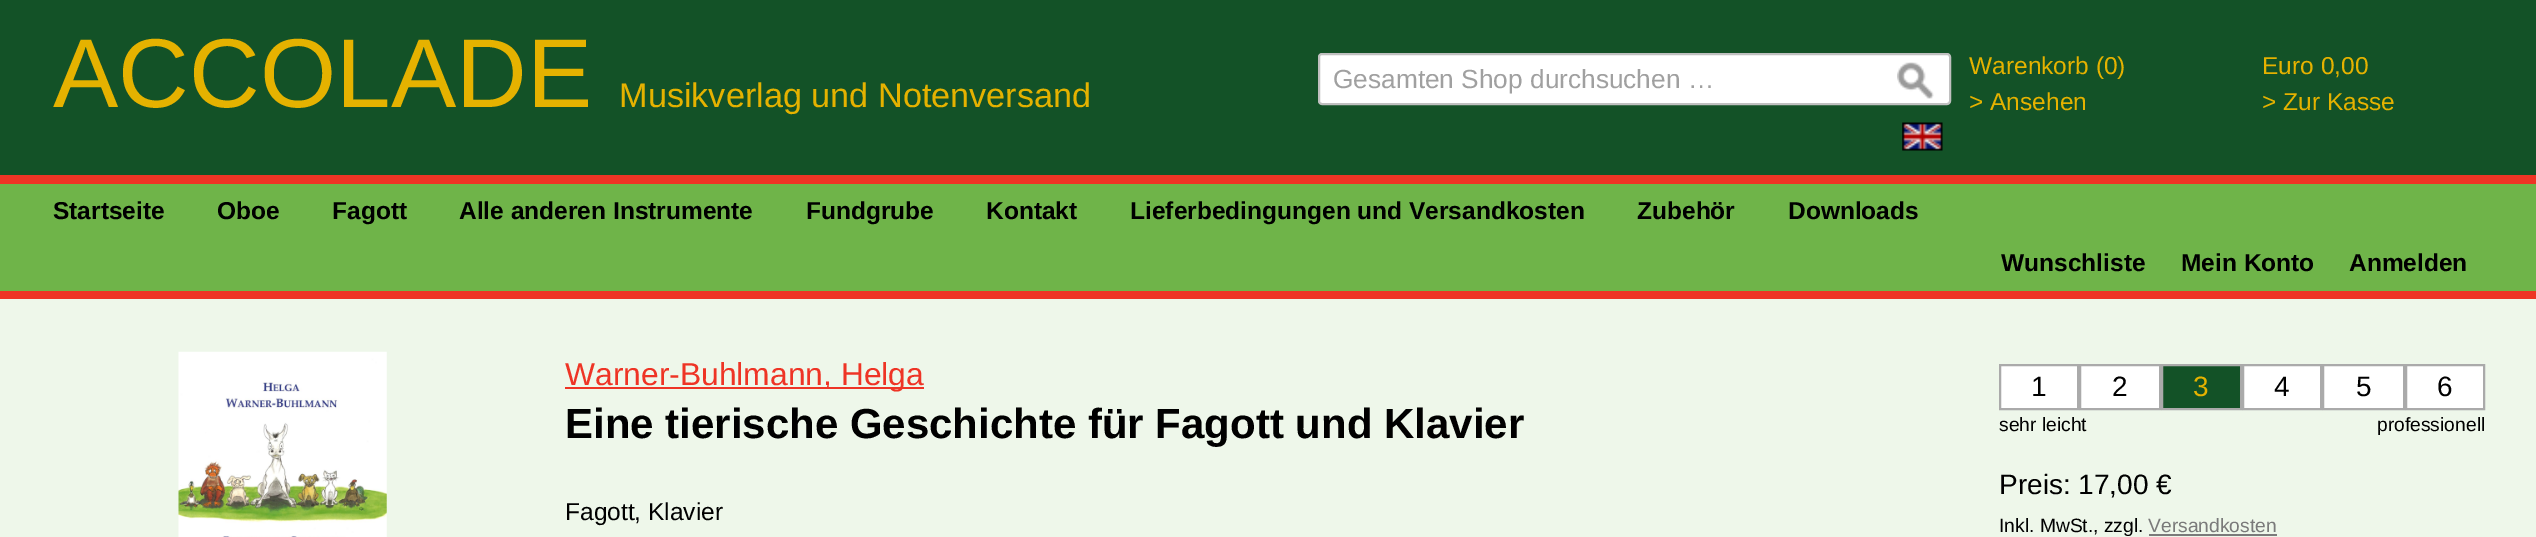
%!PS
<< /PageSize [2536 537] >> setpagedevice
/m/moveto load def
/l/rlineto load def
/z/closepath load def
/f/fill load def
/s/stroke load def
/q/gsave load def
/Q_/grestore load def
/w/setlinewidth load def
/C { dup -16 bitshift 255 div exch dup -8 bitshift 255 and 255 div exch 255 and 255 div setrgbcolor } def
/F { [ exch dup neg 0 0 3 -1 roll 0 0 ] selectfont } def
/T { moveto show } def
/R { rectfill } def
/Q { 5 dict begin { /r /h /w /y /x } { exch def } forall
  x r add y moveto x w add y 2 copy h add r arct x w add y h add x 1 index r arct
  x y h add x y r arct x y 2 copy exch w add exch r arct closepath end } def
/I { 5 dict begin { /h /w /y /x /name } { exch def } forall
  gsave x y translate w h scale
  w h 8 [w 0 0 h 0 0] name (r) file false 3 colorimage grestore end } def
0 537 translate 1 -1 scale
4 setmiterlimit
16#EEF7EA C
0 0 2536 537 R
16#135227 C
0 0 2536 175 R
/LiberationSans-Regular 98 F
16#E5B200 C
(ACCOLADE) 53 107 T
/LiberationSans-Regular 34.25 F
(Musikverlag und Notenversand) 619 107 T
16#FFFFFF C
1319 54 631 50 3 Q q f Q_
16#C0C0C0 C
2 w
s
/LiberationSans-Regular 26.25 F
16#A0A0A0 C
(Gesamten Shop durchsuchen …) 1333 88 T
(1.rgb) 1897 62 37 37 I
/LiberationSans-Regular 24.5 F
16#E5B200 C
(Warenkorb \(0\)) 1969 74 T
(> Ansehen) 1969 110 T
(Euro 0,00) 2262 74 T
(> Zur Kasse) 2262 110 T
(2.rgb) 1902 122 41 29 I
16#EE3425 C
0 175 2536 9 R
16#6FB449 C
0 184 2536 107 R
/LiberationSans-Bold 24.5 F
16#000000 C
(Startseite) 53 219 T
(Oboe) 217 219 T
(Fagott) 332 219 T
(Alle anderen Instrumente) 459 219 T
(Fundgrube) 806 219 T
(Kontakt) 986 219 T
(Lieferbedingungen und Versandkosten) 1130 219 T
(Zubehör) 1637 219 T
(Downloads) 1788 219 T
16#EE3425 C
0 291 2536 8 R
16#000000 C
(Wunschliste) 2001 271 T
(Mein Konto) 2181 271 T
(Anmelden) 2349 271 T
(3.rgb) 178 351 209 186 I
16#EE3425 C
565 387 359 2 R
/LiberationSans-Regular 31.8 F
(Warner-Buhlmann, Helga) 565 385 T
/LiberationSans-Bold 42 F
16#000000 C
(Eine tierische Geschichte für Fagott und Klavier) 565 438 T
/LiberationSans-Regular 24.5 F
(Fagott, Klavier) 565 520 T
16#FFFFFF C
2000 365 m 78 0 l 0 44 l -78 0 l z q f Q_
16#AAAAAA C
s
/LiberationSans-Regular 28 F
16#000000 C
(1) 2031 396 T
16#FFFFFF C
2080 365 m 80 0 l 0 44 l -80 0 l z q f Q_
16#AAAAAA C
s
16#000000 C
(2) 2112 396 T
16#135227 C
2162 365 m 79 0 l 0 44 l -79 0 l z q f Q_
16#AAAAAA C
s
16#E5B200 C
(3) 2193 396 T
16#FFFFFF C
2243 365 m 78 0 l 0 44 l -78 0 l z q f Q_
16#AAAAAA C
s
16#000000 C
(4) 2274 396 T
16#FFFFFF C
2323 365 m 81 0 l 0 44 l -81 0 l z q f Q_
16#AAAAAA C
s
16#000000 C
(5) 2356 396 T
16#FFFFFF C
2406 365 m 78 0 l 0 44 l -78 0 l z q f Q_
16#AAAAAA C
s
16#000000 C
(6) 2437 396 T
/LiberationSans-Regular 19.25 F
(sehr leicht) 1999 431 T
(professionell) 2377 431 T
/LiberationSans-Regular 28 F
(Preis: 17,00 €) 1999 494 T
/LiberationSans-Regular 19.25 F
(Inkl. MwSt., zzgl.) 1999 532 T
16#7A7A7A C
(Versandkosten) 2148 532 T
2149 534 128 2 R
showpage
